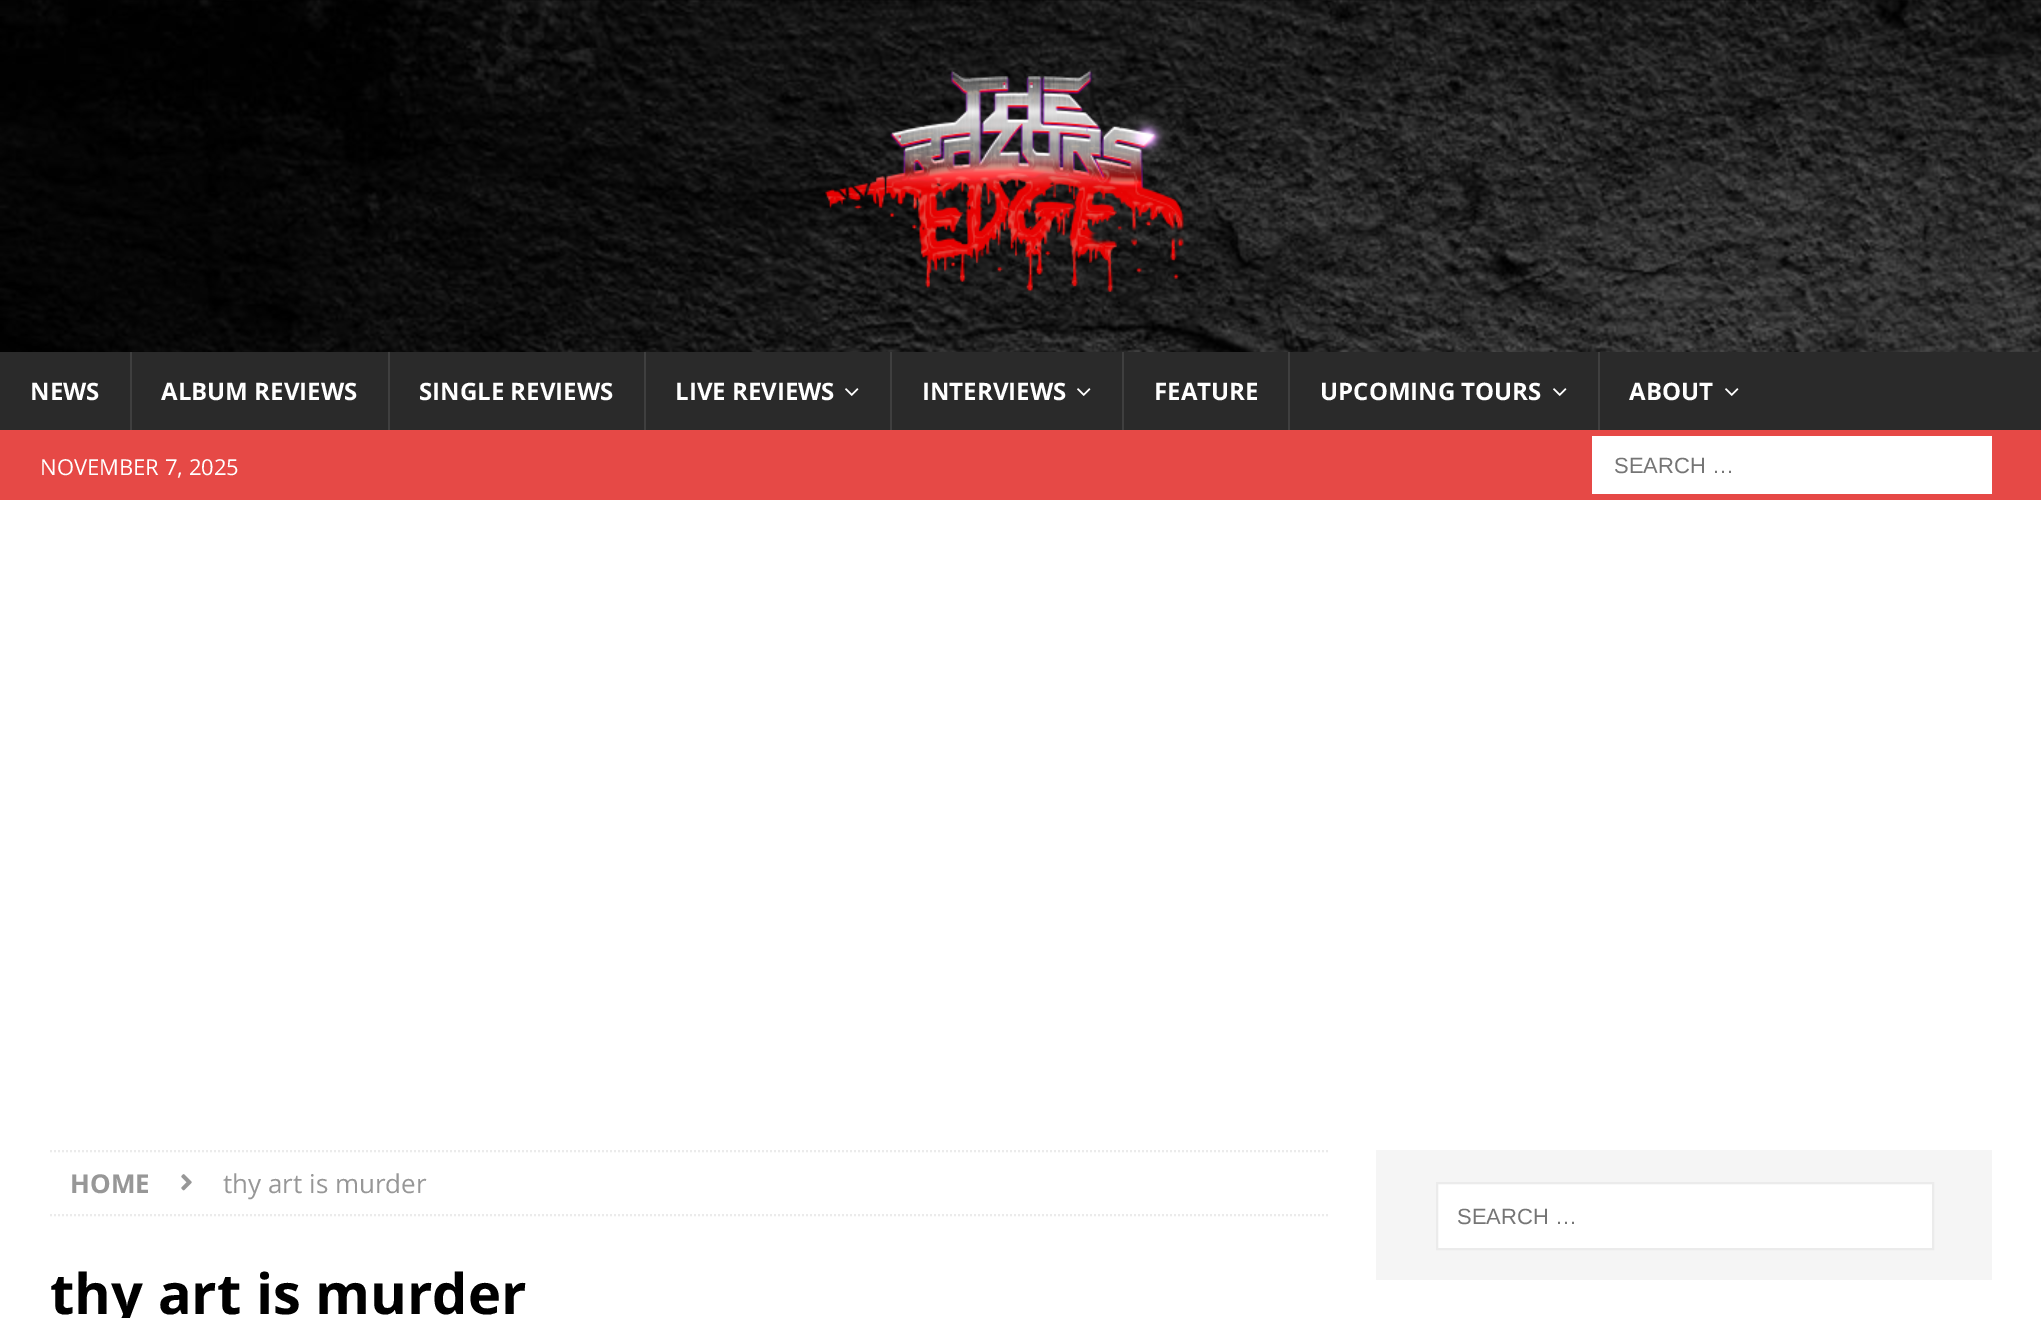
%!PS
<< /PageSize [2041 1318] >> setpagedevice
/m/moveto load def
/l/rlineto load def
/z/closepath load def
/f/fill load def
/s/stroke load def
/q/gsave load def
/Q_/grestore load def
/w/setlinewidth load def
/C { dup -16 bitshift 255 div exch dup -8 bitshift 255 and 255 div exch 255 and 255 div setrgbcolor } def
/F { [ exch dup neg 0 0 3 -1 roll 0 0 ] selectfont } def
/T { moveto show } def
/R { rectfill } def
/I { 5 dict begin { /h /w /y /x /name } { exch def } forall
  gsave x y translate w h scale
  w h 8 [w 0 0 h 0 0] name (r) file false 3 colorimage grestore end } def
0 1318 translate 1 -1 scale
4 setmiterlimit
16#FFFFFF C
0 0 2041 1318 R
(1.rgb) 0 0 2041 352 I
(2.rgb) 825 70 359 222 I
16#2A2A2A C
0 352 2041 78 R
/OpenSans-Bold 24 F
16#FFFFFF C
(NEWS) 30 400 T
16#3F3F3F C
130 352 2 78 R
16#FFFFFF C
(ALBUM REVIEWS) 161 400 T
16#3F3F3F C
388 352 2 78 R
16#FFFFFF C
(SINGLE REVIEWS) 419 400 T
16#3F3F3F C
644 352 2 78 R
16#FFFFFF C
(LIVE REVIEWS) 675 400 T
(3.rgb) 845 388 14 8 I
16#3F3F3F C
890 352 2 78 R
16#FFFFFF C
(INTERVIEWS) 922 400 T
(3.rgb) 1077 388 14 8 I
16#3F3F3F C
1122 352 2 78 R
16#FFFFFF C
(FEATURE) 1154 400 T
16#3F3F3F C
1288 352 2 78 R
16#FFFFFF C
(UPCOMING TOURS) 1320 400 T
(3.rgb) 1553 388 14 8 I
16#3F3F3F C
1598 352 2 78 R
16#FFFFFF C
(ABOUT) 1629 400 T
(3.rgb) 1725 388 14 8 I
16#E64946 C
0 430 2041 70 R
/OpenSans-Regular 22 F
16#FFFFFF C
(NOVEMBER 7, 2025) 40 475 T
1592 436 400 58 R
/LiberationSans-Regular 22 F
16#757575 C
(SEARCH …) 1614 473 T
16#EBEBEB C
2 w
[2 2] 0 setdash
50 1151 m 1278 0 l s
50 1215 m 1278 0 l s
/OpenSans-Bold 26 F
16#979797 C
(HOME) 70 1193 T
(4.rgb) 181 1174 11 17 I
/OpenSans-Regular 26 F
(thy art is murder) 223 1193 T
/OpenSans-Bold 56 F
16#000000 C
(thy art is murder) 50 1314 T
16#F5F5F5 C
1376 1150 616 130 R
16#FFFFFF C
1437 1183 m 496 0 l 0 66 l -496 0 l z q f Q_
16#EBEBEB C
[] 0 setdash
s
/LiberationSans-Regular 22 F
16#757575 C
(SEARCH …) 1457 1224 T
showpage
